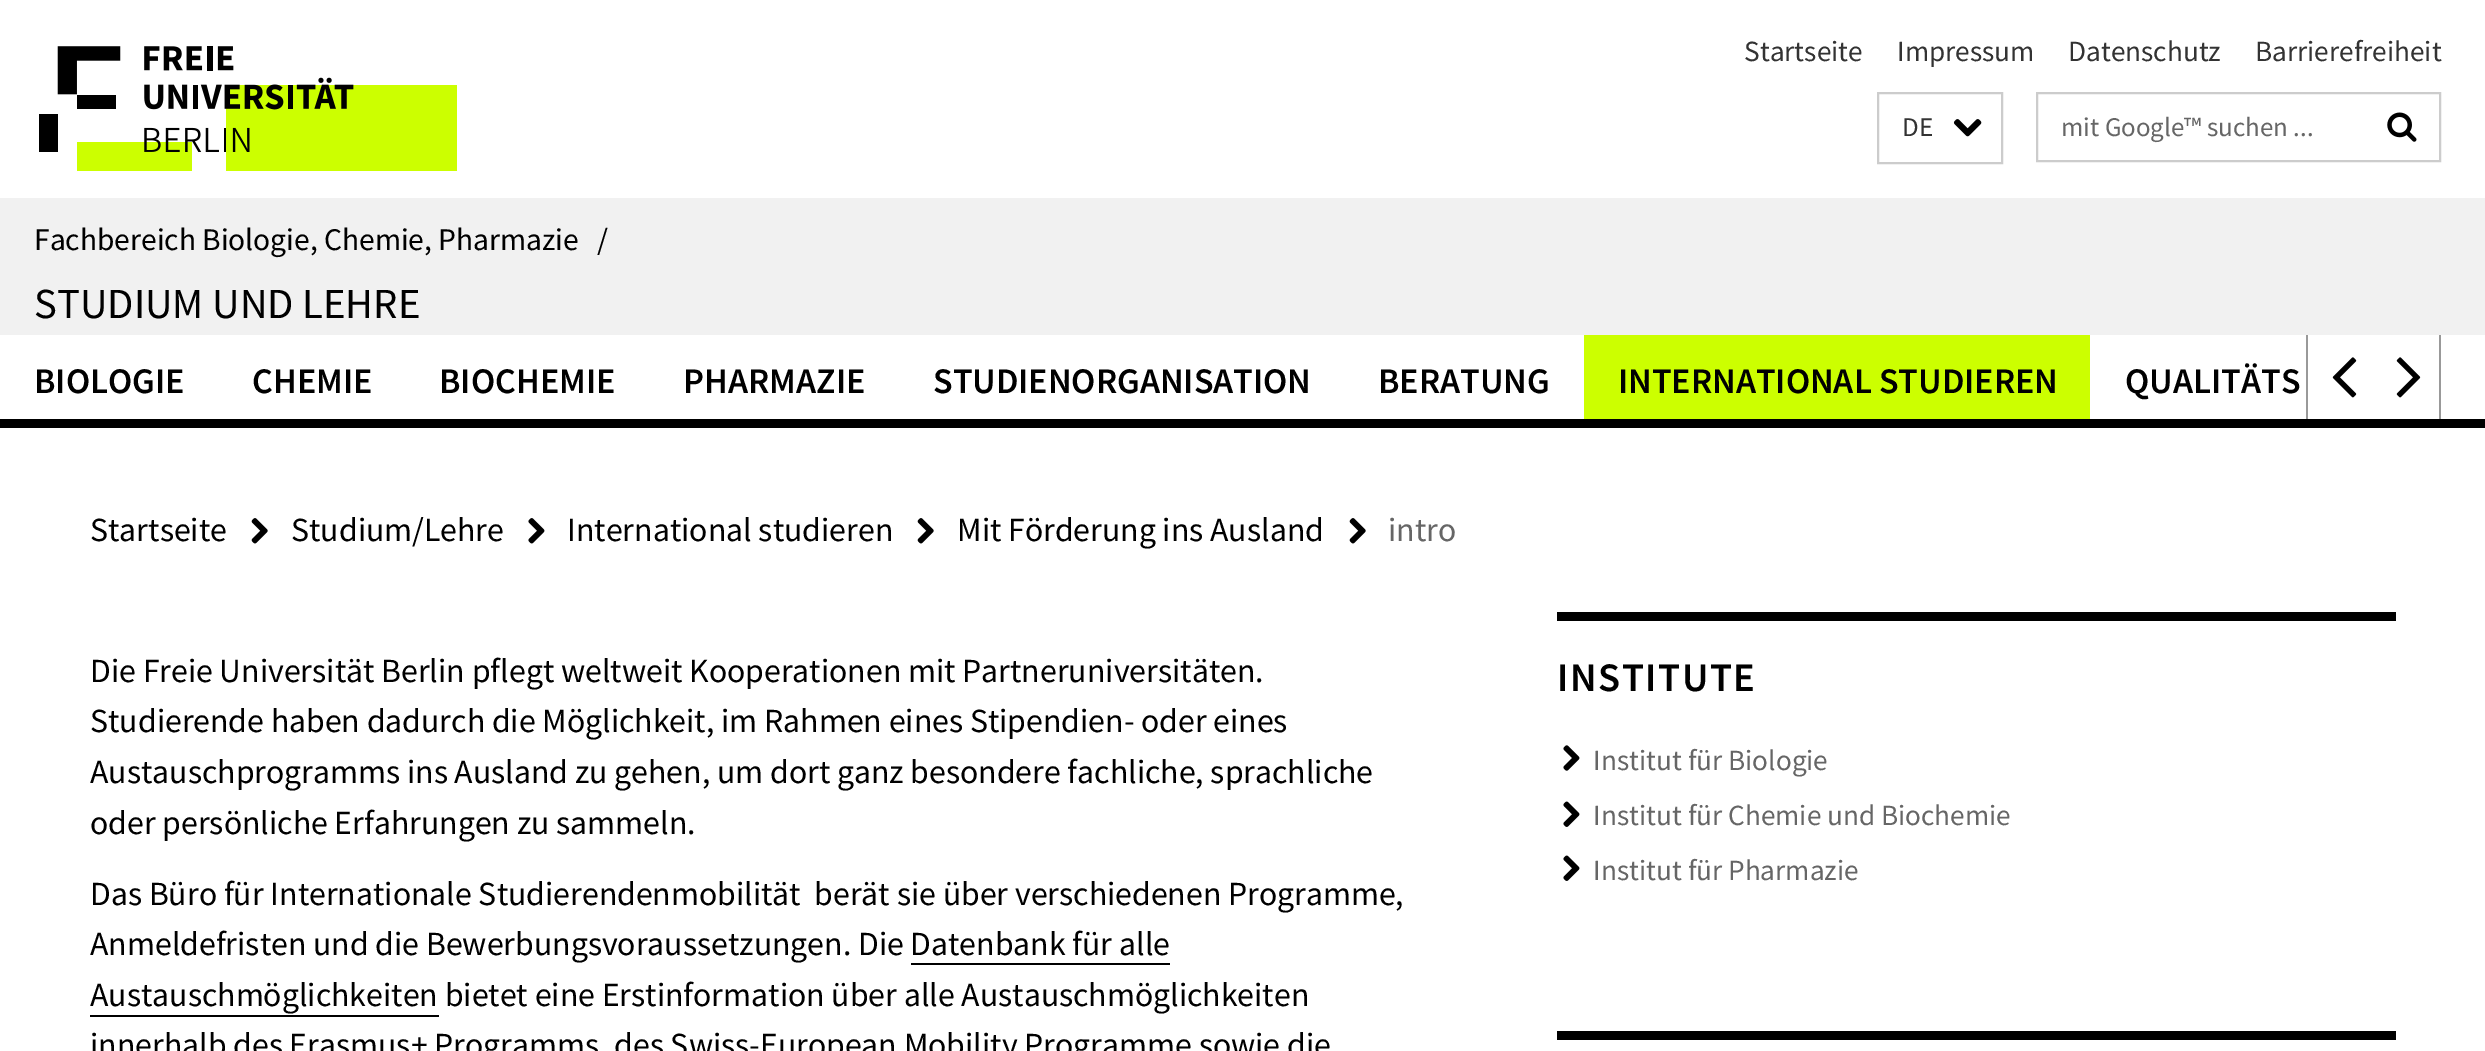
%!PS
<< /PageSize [2485 1051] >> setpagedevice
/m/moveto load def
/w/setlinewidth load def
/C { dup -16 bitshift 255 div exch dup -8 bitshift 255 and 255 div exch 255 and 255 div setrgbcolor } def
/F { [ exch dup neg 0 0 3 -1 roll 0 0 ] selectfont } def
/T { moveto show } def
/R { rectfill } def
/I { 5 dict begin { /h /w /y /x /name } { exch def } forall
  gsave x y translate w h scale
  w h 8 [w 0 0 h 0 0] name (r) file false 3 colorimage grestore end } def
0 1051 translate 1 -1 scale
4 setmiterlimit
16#FFFFFF C
0 0 2485 1051 R
(1.rgb) 39 46 418 125 I
/SourceSansPro-Regular 29.25 F
16#333333 C
(Startseite) 1744 61 T
(Impressum) 1897 61 T
(Datenschutz) 2068 61 T
(Barrierefreiheit) 2255 61 T
16#CCCCCC C
2 w
1878 93 124 70 rectstroke
/SourceSansPro-Regular 27 F
16#333333 C
(DE) 1902 136 T
(2.rgb) 1953 119 29 18 I
16#CCCCCC C
2037 93 403 68 rectstroke
16#666666 C
(mit Google™ suchen ...) 2061 136 T
(3.rgb) 2387 112 30 30 I
16#F1F1F1 C
0 198 2485 137 R
/SourceSansPro-Regular 31.5 F
16#000000 C
(Fachbereich Biologie, Chemie, Pharmazie) 34 250 T
(/) 597 250 T
/SourceSansPro-Regular 42.75 F
(STUDIUM UND LEHRE) 34 318 T
0 419 2485 9 R
/SourceSansPro-SemiBold 36 F
(BIOLOGIE) 34 393 T
(CHEMIE) 252 393 T
(BIOCHEMIE) 439 393 T
(PHARMAZIE) 683 393 T
(STUDIENORGANISATION) 933 393 T
(BERATUNG) 1378 393 T
16#CCFF00 C
1584 335 506 84 R
16#000000 C
(INTERNATIONAL STUDIEREN) 1618 393 T
(QUALITÄTS) 2125 393 T
16#999999 C
2306 335 2 84 R
(4.rgb) 2332 357 25 41 I
2439 335 2 84 R
(5.rgb) 2396 357 25 41 I
/SourceSansPro-Regular 33.75 F
16#000000 C
(Startseite) 90 541 T
(6.rgb) 251 518 17 26 I
(Studium/Lehre) 291 541 T
(7.rgb) 528 518 17 26 I
(International studieren) 567 541 T
(6.rgb) 917 518 17 26 I
(Mit Förderung ins Ausland) 957 541 T
(6.rgb) 1349 518 17 26 I
16#666666 C
(intro) 1388 541 T
16#000000 C
(Die Freie Universität Berlin pflegt weltweit Kooperationen mit Partneruniversitäten.) 90 682 T
(Studierende haben dadurch die Möglichkeit, im Rahmen eines Stipendien- oder eines) 90 732 T
(Austauschprogramms ins Ausland zu gehen, um dort ganz besondere fachliche, sprachliche) 90 783 T
(oder persönliche Erfahrungen zu sammeln.) 90 834 T
(Das Büro für Internationale Studierendenmobilität  berät sie über verschiedenen Programme,) 90 905 T
(Anmeldefristen und die Bewerbungsvoraussetzungen. Die Datenbank für alle) 90 955 T
(Austauschmöglichkeiten bietet eine Erstinformation über alle Austauschmöglichkeiten) 90 1006 T
911 963 259 2 R
90 1015 349 2 R
(innerhalb des Erasmus+ Programms, des Swiss-European Mobility Programme sowie die) 90 1056 T
1557 612 839 9 R
/SourceSansPro-SemiBold 40.5 F
1557 691 m 1.5 0 (INSTITUTE) ashow
(8.rgb) 1563 745 17 26 I
/SourceSansPro-Regular 29.25 F
16#666666 C
(Institut für Biologie) 1593 770 T
(9.rgb) 1563 801 17 26 I
(Institut für Chemie und Biochemie) 1593 825 T
(9.rgb) 1563 855 17 26 I
(Institut für Pharmazie) 1593 880 T
16#000000 C
1557 1031 839 9 R
showpage
